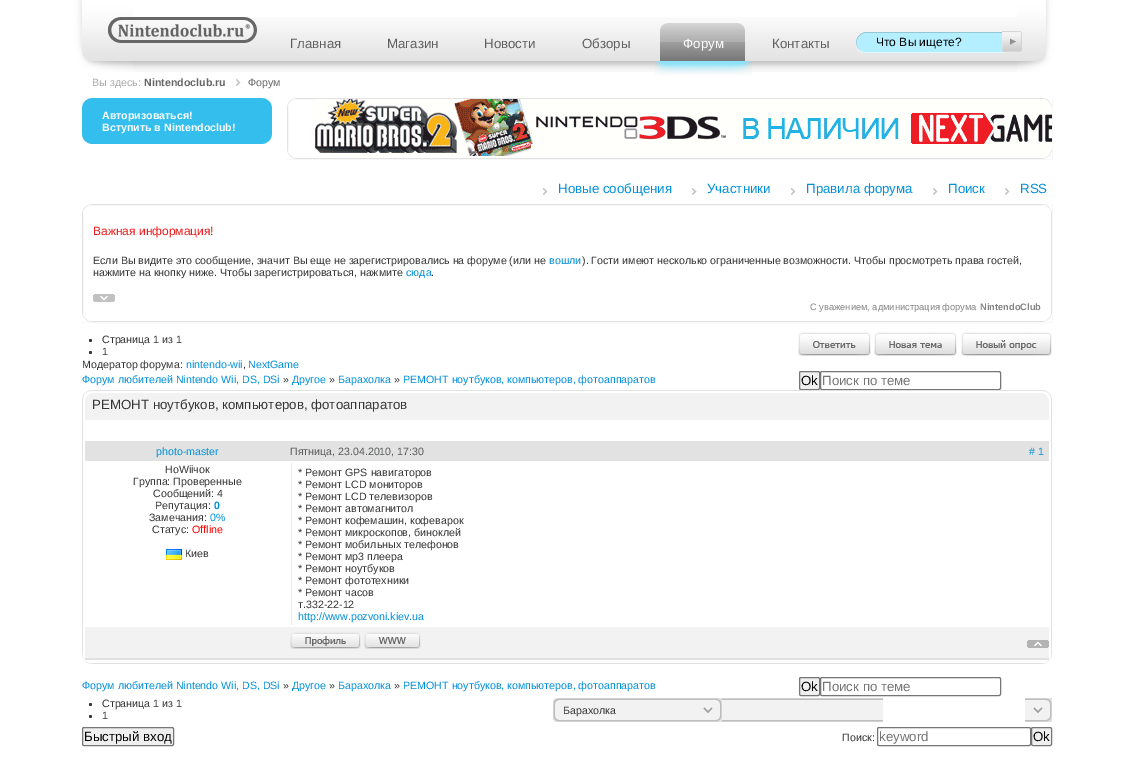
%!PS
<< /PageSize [1134 762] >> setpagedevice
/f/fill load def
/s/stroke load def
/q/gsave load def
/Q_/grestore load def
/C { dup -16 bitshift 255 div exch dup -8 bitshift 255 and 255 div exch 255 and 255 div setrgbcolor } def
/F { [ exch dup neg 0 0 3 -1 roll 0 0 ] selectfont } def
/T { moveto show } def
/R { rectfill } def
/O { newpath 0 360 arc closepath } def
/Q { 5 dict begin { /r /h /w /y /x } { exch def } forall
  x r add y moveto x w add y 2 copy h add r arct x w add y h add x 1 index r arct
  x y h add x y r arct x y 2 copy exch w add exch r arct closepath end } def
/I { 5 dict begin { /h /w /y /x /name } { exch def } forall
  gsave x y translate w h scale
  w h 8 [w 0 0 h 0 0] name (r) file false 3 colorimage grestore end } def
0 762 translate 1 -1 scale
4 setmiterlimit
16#FFFFFF C
0 0 1134 762 R
(1.rgb) 133 17 884 55 I
(2.rgb) 67 0 66 72 I
(3.rgb) 1017 0 50 72 I
(4.rgb) 108 17 149 26 I
/LiberationSans-Regular 13.3 F
16#5E5E5E C
(Главная) 290 48 T
(Магазин) 387 48 T
(Новости) 484 48 T
(Обзоры) 582 48 T
(5.rgb) 655 23 97 52 I
16#FFFFFF C
(Форум) 683 48 T
16#5E5E5E C
(Контакты) 772 48 T
(6.rgb) 856 32 148 21 I
/LiberationSans-Regular 12 F
16#000000 C
(Что Вы ищете?) 876 46 T
(7.rgb) 1002 31 20 21 I
/LiberationSans-Regular 10.65 F
16#A9A9A9 C
(Вы здесь:) 92 86 T
/LiberationSans-Bold 10.65 F
16#676767 C
(Nintendoclub.ru) 144 86 T
(8.rgb) 236 79 5 7 I
/LiberationSans-Regular 10.65 F
(Форум) 248 86 T
16#34BEED C
82 98 190 46 R
(9.rgb) 82 98 9 9 I
(10.rgb) 263 98 9 9 I
(11.rgb) 82 135 9 9 I
(12.rgb) 263 135 9 9 I
/LiberationSans-Bold 10.65 F
16#FFFFFF C
(Авторизоваться!) 102 119 T
(Вступить в Nintendoclub!) 102 131 T
16#E2E2E2 C
287.5 98.5 764 60 rectstroke
(13.rgb) 287 98 9 9 I
(15.rgb) 315 99 737 57 I
(14.rgb) 1043 98 9 9 I
(16.rgb) 287 150 9 9 I
(17.rgb) 1043 150 9 9 I
(8.rgb) 543 188 5 7 I
/LiberationSans-Regular 13.3 F
16#0090DA C
(Новые сообщения) 558 193 T
(8.rgb) 692 188 5 7 I
(Участники) 707 193 T
(8.rgb) 791 188 5 7 I
(Правила форума) 806 193 T
(8.rgb) 933 188 5 7 I
(Поиск) 948 193 T
(8.rgb) 1005 188 5 7 I
(RSS) 1020 193 T
16#E2E2E2 C
82.5 204.5 969 117 rectstroke
(13.rgb) 82 204 9 9 I
(18.rgb) 1043 204 9 9 I
/LiberationSans-Regular 12 F
16#ED1D1E C
(Важная информация!) 93 235 T
/LiberationSans-Regular 10.65 F
16#343434 C
(Если Вы видите это сообщение, значит Вы еще не зарегистрировались на форуме \(или не) 93 264 T
16#0090DA C
(вошли) 549 264 T
16#343434 C
(\). Гости имеют несколько ограниченные возможности. Чтобы просмотреть права гостей,) 582 264 T
(нажмите на кнопку ниже. Чтобы зарегистрироваться, нажмите) 93 276 T
16#0090DA C
(сюда) 406 276 T
16#343434 C
(.) 431 276 T
(19.rgb) 93 294 22 8 I
/LiberationSans-Regular 9.3 F
16#848484 C
(С уважением, администрация форума) 810 310 T
/LiberationSans-Bold 9.3 F
(NintendoClub) 980 310 T
(16.rgb) 82 313 9 9 I
(20.rgb) 1043 313 9 9 I
16#343434 C
90.5 340.5 1.5 O f
/LiberationSans-Regular 10.65 F
(Страница 1 из 1) 102 343 T
90.5 352.5 1.5 O f
(1) 102 355 T
(21.rgb) 798 332 73 24 I
(22.rgb) 874 332 83 24 I
(23.rgb) 961 332 91 24 I
(Модератор форума:) 82 368 T
16#0090DA C
(nintendo-wii) 186 368 T
16#343434 C
(,) 243 368 T
16#0090DA C
(NextGame) 248 368 T
(Форум любителей Nintendo Wii, DS, DSi) 82 383 T
16#343434 C
(») 283 383 T
16#0090DA C
(Другое) 292 383 T
16#343434 C
(») 329 383 T
16#0090DA C
(Барахолка) 338 383 T
16#343434 C
(») 394 383 T
16#0090DA C
(РЕМОНТ ноутбуков, компьютеров, фотоаппаратов) 403 383 T
16#EFEFEF C
799.5 371.5 20 18 1.5 Q q f Q_
16#767676 C
s
/LiberationSans-Regular 13.3 F
16#000000 C
(Ok) 801 385 T
16#767676 C
820.5 371.5 180 18 1.5 Q s
16#757575 C
(Поиск по теме) 822 385 T
16#E2E2E2 C
1051 420 1 241 R
82 420 1 241 R
(24.rgb) 82 390 961 30 I
16#343434 C
(РЕМОНТ ноутбуков, компьютеров, фотоаппаратов) 92 409 T
(25.rgb) 1043 390 9 30 I
16#E2E2E2 C
85 441 964 20 R
/LiberationSans-Regular 10.65 F
16#0090DA C
(photo-master) 156 455 T
16#585A5A C
(Пятница, 23.04.2010, 17:30) 290 455 T
16#0090DA C
(# 1) 1029 455 T
16#EAEAEA C
291 463 1 162 R
16#343434 C
(НоWiiчок) 165 473 T
(Группа: Проверенные) 133 485 T
(Сообщений: 4) 153 497 T
(Репутация:) 155 509 T
/LiberationSans-Bold 10.65 F
16#0090DA C
(0) 214 509 T
/LiberationSans-Regular 10.65 F
16#343434 C
(Замечания:) 149 521 T
16#0090DA C
(0%) 210 521 T
16#343434 C
(Статус:) 152 533 T
16#FF0000 C
(Offline) 192 533 T
(26.rgb) 166 549 16 11 I
16#343434 C
(Киев) 185 557 T
(* Ремонт GPS навигаторов) 298 476 T
(* Ремонт LCD мониторов) 298 488 T
(* Ремонт LCD телевизоров) 298 500 T
(* Ремонт автомагнитол) 298 512 T
(* Ремонт кофемашин, кофеварок) 298 524 T
(* Ремонт микроскопов, биноклей) 298 536 T
(* Ремонт мобильных телефонов) 298 548 T
(* Ремонт мр3 плеера) 298 560 T
(* Ремонт ноутбуков) 298 572 T
(* Ремонт фототехники) 298 584 T
(* Ремонт часов) 298 596 T
(т.332-22-12) 298 608 T
16#0090DA C
(http://www.pozvoni.kiev.ua) 298 620 T
(30.rgb) 82 654 10 10 I
(31.rgb) 1042 654 10 10 I
16#F2F2F2 C
85 627 964 31 R
16#E1E1E1 C
85 658 964 2 R
(27.rgb) 290 632 71 17 I
(28.rgb) 364 632 57 17 I
(29.rgb) 1027 640 22 8 I
16#E2E2E2 C
92 663 950 1 R
16#0090DA C
(Форум любителей Nintendo Wii, DS, DSi) 82 689 T
16#343434 C
(») 283 689 T
16#0090DA C
(Другое) 292 689 T
16#343434 C
(») 329 689 T
16#0090DA C
(Барахолка) 338 689 T
16#343434 C
(») 394 689 T
16#0090DA C
(РЕМОНТ ноутбуков, компьютеров, фотоаппаратов) 403 689 T
16#EFEFEF C
799.5 677.5 20 18 1.5 Q q f Q_
16#767676 C
s
/LiberationSans-Regular 13.3 F
16#000000 C
(Ok) 801 691 T
16#767676 C
820.5 677.5 180 18 1.5 Q s
16#757575 C
(Поиск по теме) 822 691 T
16#343434 C
90.5 704.5 1.5 O f
/LiberationSans-Regular 10.65 F
(Страница 1 из 1) 102 707 T
90.5 716.5 1.5 O f
(1) 102 719 T
(32.rgb) 553 698 330 24 I
(33.rgb) 703 698 349 24 I
(Барахолка) 563 714 T
16#EFEFEF C
82.5 727.5 91 18 1.5 Q q f Q_
16#767676 C
s
/LiberationSans-Regular 13.3 F
16#000000 C
(Быстрый вход) 84 741 T
/LiberationSans-Regular 10.65 F
16#343434 C
(Поиск:) 842 741 T
16#767676 C
877.5 727.5 153 18 1.5 Q s
/LiberationSans-Regular 13.3 F
16#757575 C
(keyword) 879 741 T
16#EFEFEF C
1031.5 727.5 20 18 1.5 Q q f Q_
16#767676 C
s
16#000000 C
(Ok) 1033 741 T
showpage
